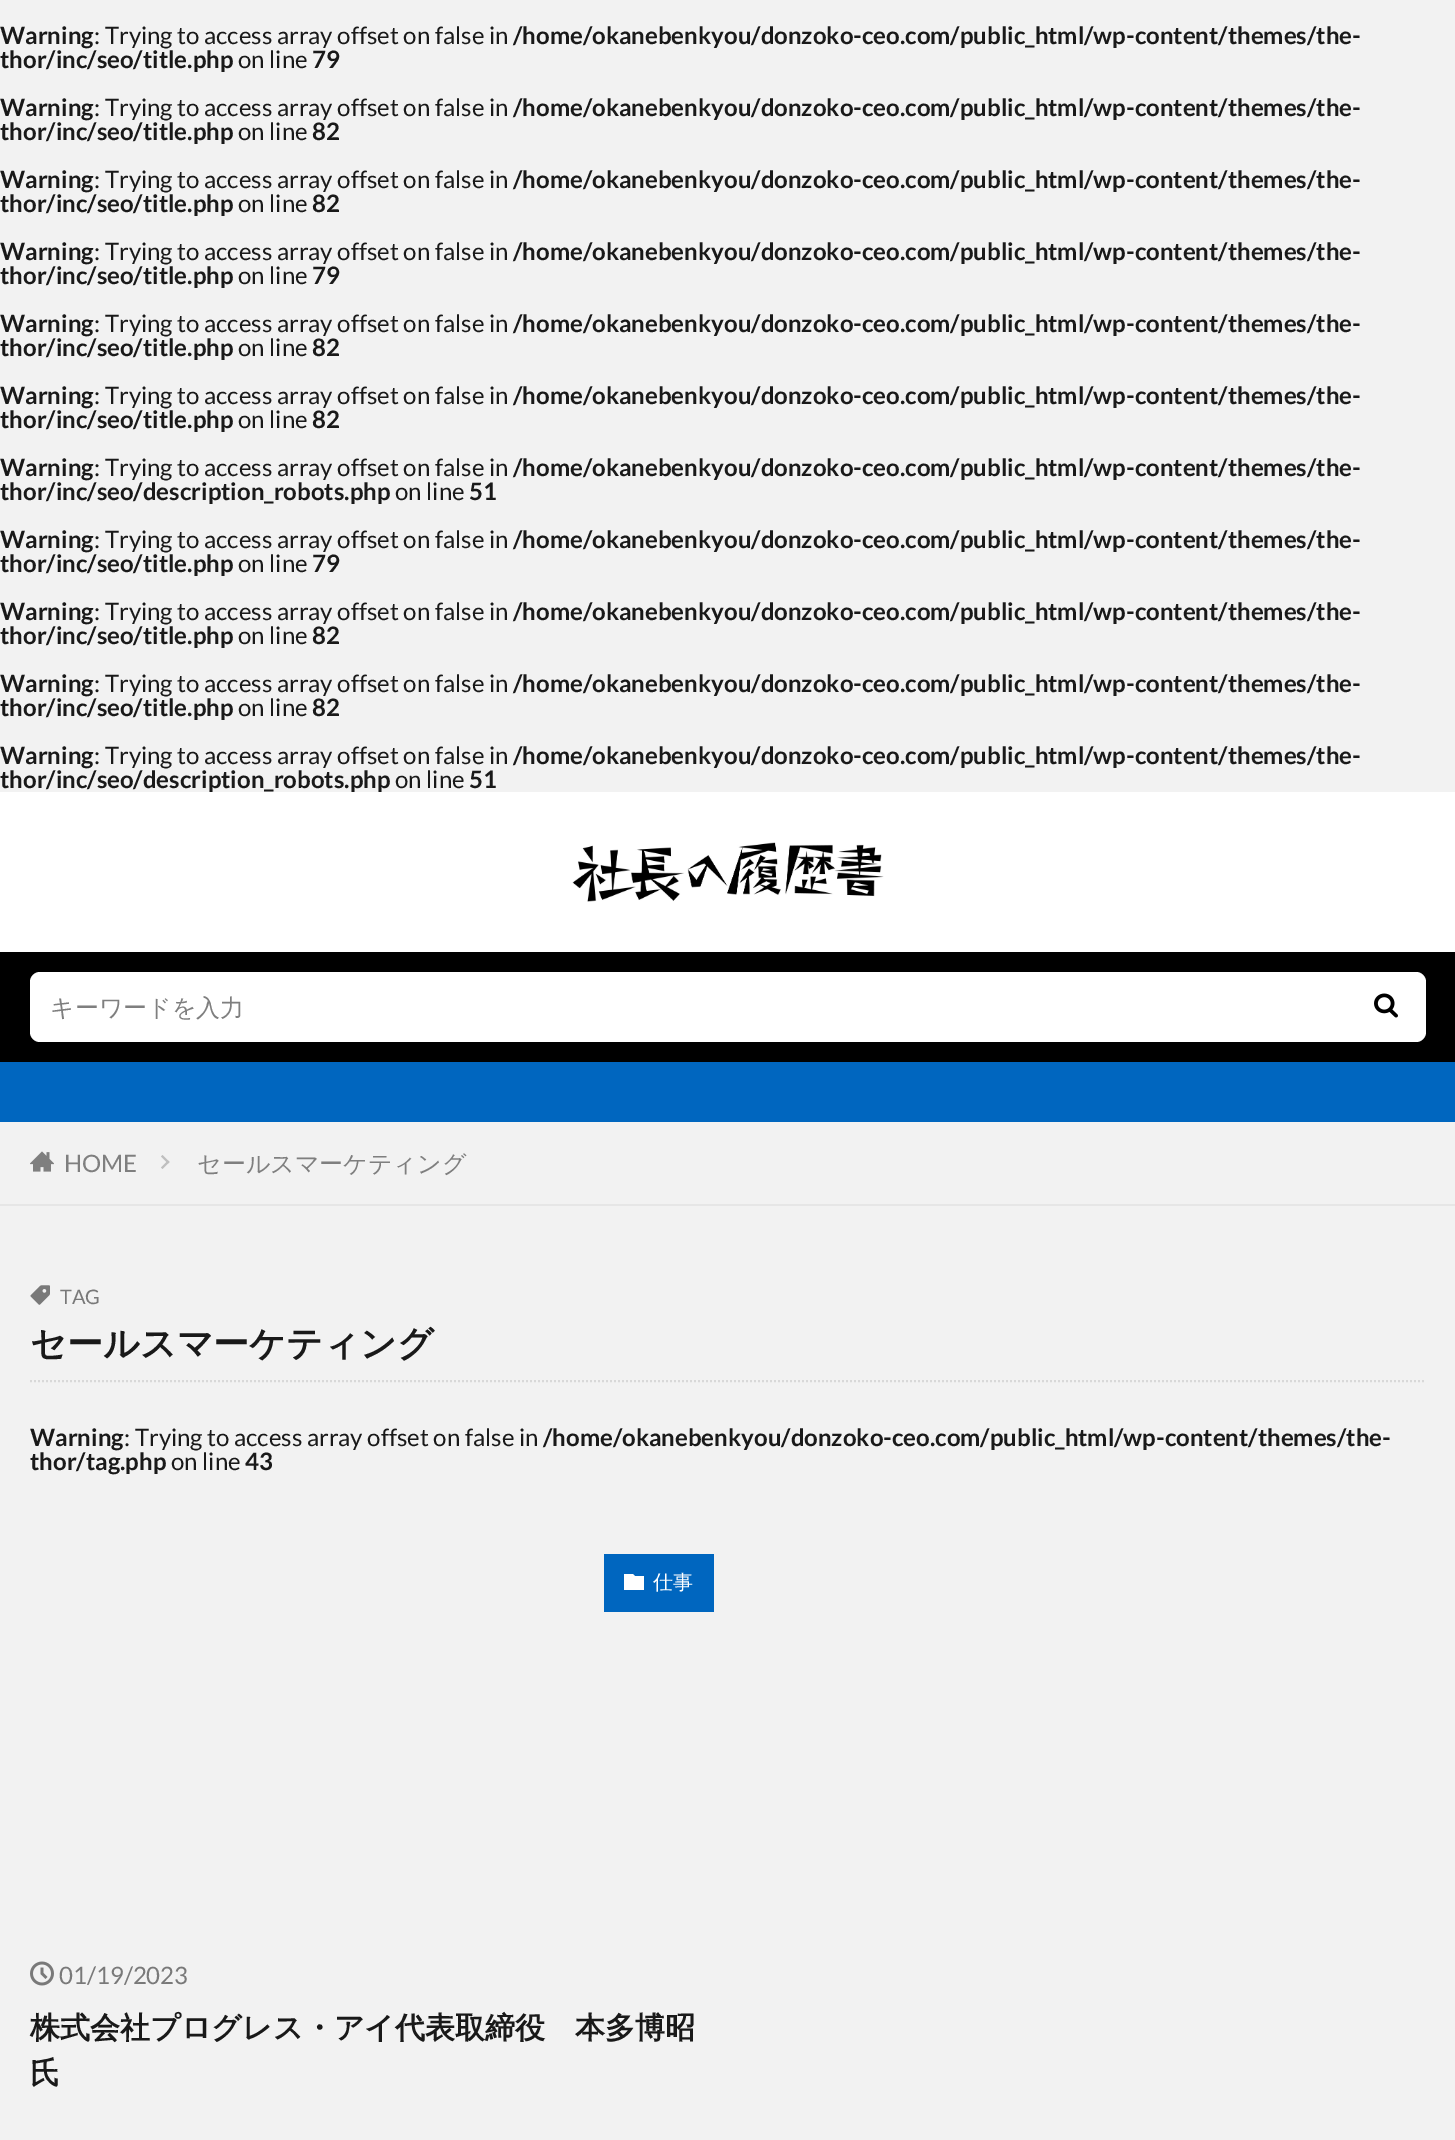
%!PS
<< /PageSize [1455 2140] >> setpagedevice
/m/moveto load def
/l/rlineto load def
/c/rcurveto load def
/z/closepath load def
/f/fill load def
/s/stroke load def
/w/setlinewidth load def
/C { dup -16 bitshift 255 div exch dup -8 bitshift 255 and 255 div exch 255 and 255 div setrgbcolor } def
/F { [ exch dup neg 0 0 3 -1 roll 0 0 ] selectfont } def
/T { moveto show } def
/R { rectfill } def
/I { 5 dict begin { /h /w /y /x /name } { exch def } forall
  gsave x y translate w h scale
  w h 8 [w 0 0 h 0 0] name (r) file false 3 colorimage grestore end } def
0 2140 translate 1 -1 scale
4 setmiterlimit
16#F2F2F2 C
0 0 1455 2140 R
/Lato-Bold 24 F
16#191919 C
(Warning) 0 44 T
/Lato-Regular 24 F
(: Trying to access array offset on false in) 94 44 T
/Lato-Bold 24 F
(/home/okanebenkyou/donzoko-ceo.com/public_html/wp-content/themes/the-) 513 44 T
(thor/inc/seo/title.php) 0 68 T
/Lato-Regular 24 F
(on line) 238 68 T
/Lato-Bold 24 F
(79) 312 68 T
(Warning) 0 116 T
/Lato-Regular 24 F
(: Trying to access array offset on false in) 94 116 T
/Lato-Bold 24 F
(/home/okanebenkyou/donzoko-ceo.com/public_html/wp-content/themes/the-) 513 116 T
(thor/inc/seo/title.php) 0 140 T
/Lato-Regular 24 F
(on line) 238 140 T
/Lato-Bold 24 F
(82) 312 140 T
(Warning) 0 188 T
/Lato-Regular 24 F
(: Trying to access array offset on false in) 94 188 T
/Lato-Bold 24 F
(/home/okanebenkyou/donzoko-ceo.com/public_html/wp-content/themes/the-) 513 188 T
(thor/inc/seo/title.php) 0 212 T
/Lato-Regular 24 F
(on line) 238 212 T
/Lato-Bold 24 F
(82) 312 212 T
(Warning) 0 260 T
/Lato-Regular 24 F
(: Trying to access array offset on false in) 94 260 T
/Lato-Bold 24 F
(/home/okanebenkyou/donzoko-ceo.com/public_html/wp-content/themes/the-) 513 260 T
(thor/inc/seo/title.php) 0 284 T
/Lato-Regular 24 F
(on line) 238 284 T
/Lato-Bold 24 F
(79) 312 284 T
(Warning) 0 332 T
/Lato-Regular 24 F
(: Trying to access array offset on false in) 94 332 T
/Lato-Bold 24 F
(/home/okanebenkyou/donzoko-ceo.com/public_html/wp-content/themes/the-) 513 332 T
(thor/inc/seo/title.php) 0 356 T
/Lato-Regular 24 F
(on line) 238 356 T
/Lato-Bold 24 F
(82) 312 356 T
(Warning) 0 404 T
/Lato-Regular 24 F
(: Trying to access array offset on false in) 94 404 T
/Lato-Bold 24 F
(/home/okanebenkyou/donzoko-ceo.com/public_html/wp-content/themes/the-) 513 404 T
(thor/inc/seo/title.php) 0 428 T
/Lato-Regular 24 F
(on line) 238 428 T
/Lato-Bold 24 F
(82) 312 428 T
(Warning) 0 476 T
/Lato-Regular 24 F
(: Trying to access array offset on false in) 94 476 T
/Lato-Bold 24 F
(/home/okanebenkyou/donzoko-ceo.com/public_html/wp-content/themes/the-) 513 476 T
(thor/inc/seo/description_robots.php) 0 500 T
/Lato-Regular 24 F
(on line) 395 500 T
/Lato-Bold 24 F
(51) 469 500 T
(Warning) 0 548 T
/Lato-Regular 24 F
(: Trying to access array offset on false in) 94 548 T
/Lato-Bold 24 F
(/home/okanebenkyou/donzoko-ceo.com/public_html/wp-content/themes/the-) 513 548 T
(thor/inc/seo/title.php) 0 572 T
/Lato-Regular 24 F
(on line) 238 572 T
/Lato-Bold 24 F
(79) 312 572 T
(Warning) 0 620 T
/Lato-Regular 24 F
(: Trying to access array offset on false in) 94 620 T
/Lato-Bold 24 F
(/home/okanebenkyou/donzoko-ceo.com/public_html/wp-content/themes/the-) 513 620 T
(thor/inc/seo/title.php) 0 644 T
/Lato-Regular 24 F
(on line) 238 644 T
/Lato-Bold 24 F
(82) 312 644 T
(Warning) 0 692 T
/Lato-Regular 24 F
(: Trying to access array offset on false in) 94 692 T
/Lato-Bold 24 F
(/home/okanebenkyou/donzoko-ceo.com/public_html/wp-content/themes/the-) 513 692 T
(thor/inc/seo/title.php) 0 716 T
/Lato-Regular 24 F
(on line) 238 716 T
/Lato-Bold 24 F
(82) 312 716 T
(Warning) 0 764 T
/Lato-Regular 24 F
(: Trying to access array offset on false in) 94 764 T
/Lato-Bold 24 F
(/home/okanebenkyou/donzoko-ceo.com/public_html/wp-content/themes/the-) 513 764 T
(thor/inc/seo/description_robots.php) 0 788 T
/Lato-Regular 24 F
(on line) 395 788 T
/Lato-Bold 24 F
(51) 469 788 T
16#FFFFFF C
0 792 1455 160 R
(1.rgb) 572 842 312 60 I
16#000000 C
0 952 1455 110 R
16#FFFFFF C
40 972 m 1306 0 l 0 70 l -1306 0 l -5.5 0 -10 -4.5 -10 -10 c 0 -50 l 0 -5.5 4.5 -10 10 -10 c z f
/WenQuanYiZenHei-Medium 24 F
16#7F7F7F C
(キーワードを入力) 50 1016 T
16#FFFFFF C
1346 972 m 70 0 l 5.5 0 10 4.5 10 10 c 0 50 l 0 5.5 -4.5 10 -10 10 c -70 0 l z f
(2.rgb) 1374 993 24 25 I
16#0066BF C
0 1062 1455 60 R
16#E6E6E6 C
0 1204 1455 2 R
(3.rgb) 30 1151 24 21 I
/Lato-Regular 24 F
16#7F7F7F C
(HOME) 64 1172 T
16#BFBFBF C
162.5 1155 m 7 7 l -1.5 1.5 l -7 -7 l z f
168 1160.5 m 1.5 1.5 l -7 7 l -1.5 -1.5 l z f
/WenQuanYiZenHei-Medium 24 F
16#7F7F7F C
(セールスマーケティング) 197 1172 T
(4.rgb) 30 1285 20 20 I
/Lato-Regular 20 F
16#797979 C
(TAG) 60 1304 T
16#D8D8D8 C
2 w
[2 2] 0 setdash
30 1381 m 1396 0 l s
/WenQuanYiZenHei-Bold 36 F
16#191919 C
(セールスマーケティング) 30 1356 T
/Lato-Bold 24 F
(Warning) 30 1446 T
/Lato-Regular 24 F
(: Trying to access array offset on false in) 124 1446 T
/Lato-Bold 24 F
(/home/okanebenkyou/donzoko-ceo.com/public_html/wp-content/themes/the-) 543 1446 T
(thor/tag.php) 30 1470 T
/Lato-Regular 24 F
(on line) 171 1470 T
/Lato-Bold 24 F
(43) 245 1470 T
16#0066BF C
604 1554 110 58 R
16#FFFFFF C
633 1574 m 2 2 l 9 0 l 0 14 l -20 0 l 0 -16 l z f
/WenQuanYiZenHei-Medium 20 F
(仕事) 653 1589 T
(5.rgb) 30 1961 24 25 I
/Lato-Regular 24 F
16#797979 C
(01/19/2023) 59 1984 T
/WenQuanYiZenHei-Bold 30 F
16#191919 C
(株式会社プログレス・アイ代表取締役　本多博昭) 30 2038 T
(氏) 30 2083 T
showpage
